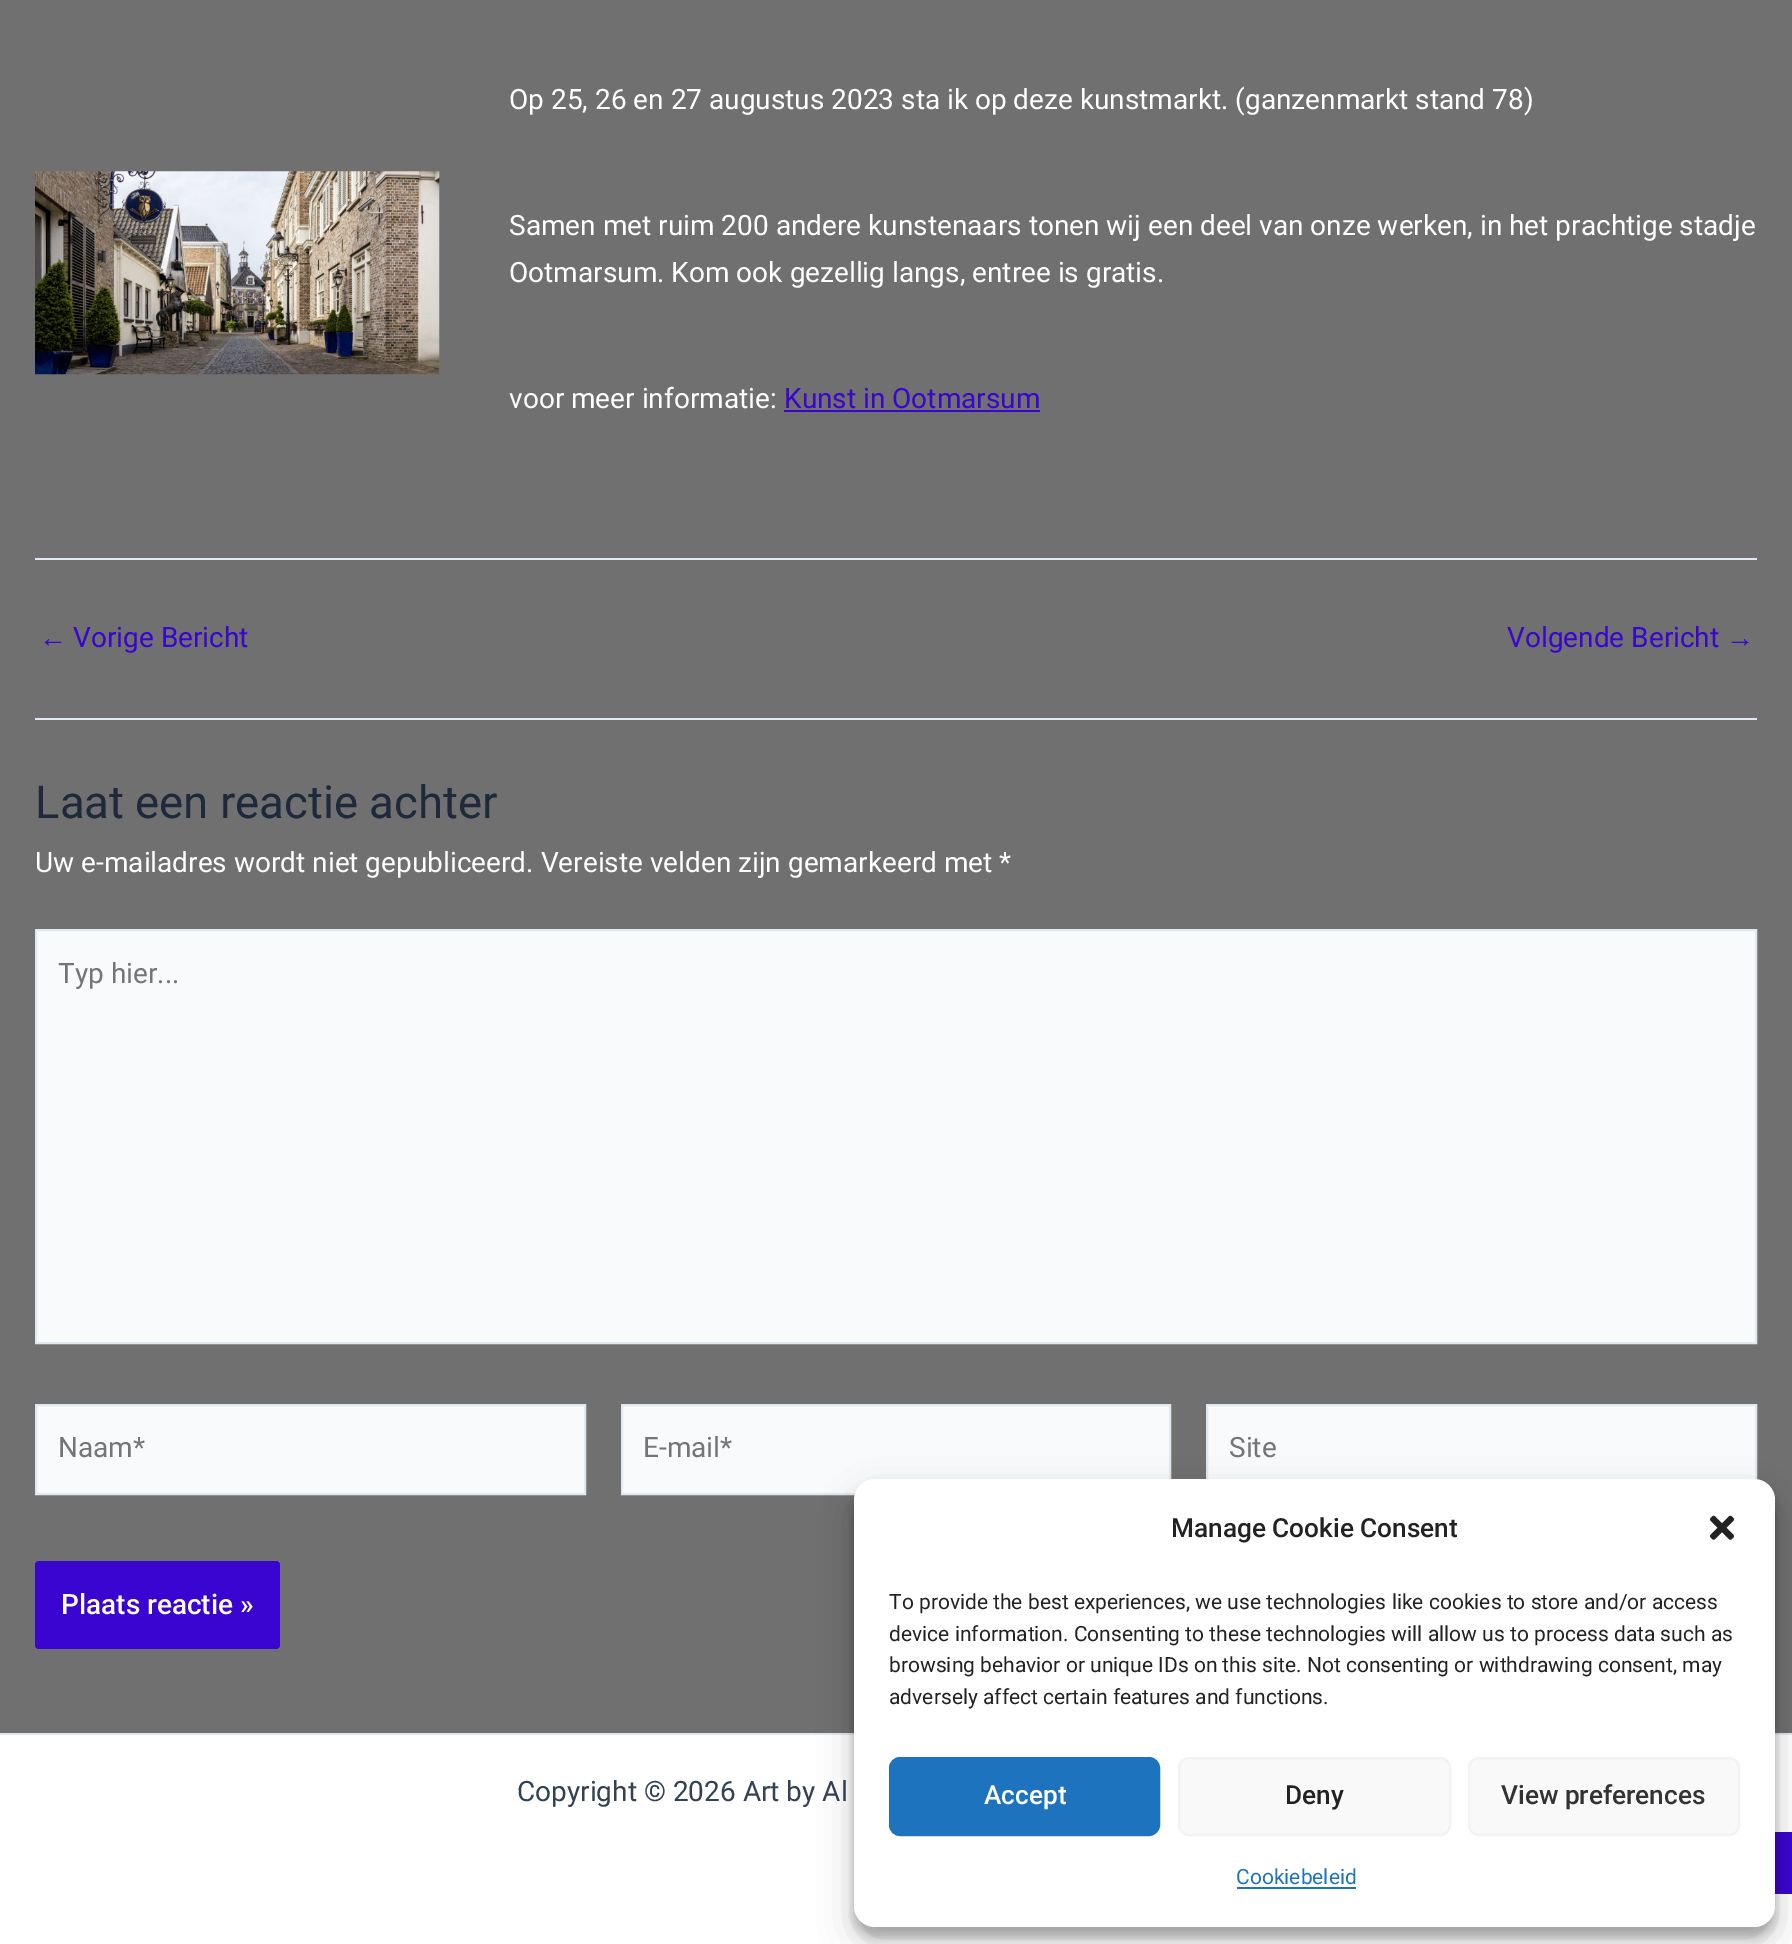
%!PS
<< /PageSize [1792 1944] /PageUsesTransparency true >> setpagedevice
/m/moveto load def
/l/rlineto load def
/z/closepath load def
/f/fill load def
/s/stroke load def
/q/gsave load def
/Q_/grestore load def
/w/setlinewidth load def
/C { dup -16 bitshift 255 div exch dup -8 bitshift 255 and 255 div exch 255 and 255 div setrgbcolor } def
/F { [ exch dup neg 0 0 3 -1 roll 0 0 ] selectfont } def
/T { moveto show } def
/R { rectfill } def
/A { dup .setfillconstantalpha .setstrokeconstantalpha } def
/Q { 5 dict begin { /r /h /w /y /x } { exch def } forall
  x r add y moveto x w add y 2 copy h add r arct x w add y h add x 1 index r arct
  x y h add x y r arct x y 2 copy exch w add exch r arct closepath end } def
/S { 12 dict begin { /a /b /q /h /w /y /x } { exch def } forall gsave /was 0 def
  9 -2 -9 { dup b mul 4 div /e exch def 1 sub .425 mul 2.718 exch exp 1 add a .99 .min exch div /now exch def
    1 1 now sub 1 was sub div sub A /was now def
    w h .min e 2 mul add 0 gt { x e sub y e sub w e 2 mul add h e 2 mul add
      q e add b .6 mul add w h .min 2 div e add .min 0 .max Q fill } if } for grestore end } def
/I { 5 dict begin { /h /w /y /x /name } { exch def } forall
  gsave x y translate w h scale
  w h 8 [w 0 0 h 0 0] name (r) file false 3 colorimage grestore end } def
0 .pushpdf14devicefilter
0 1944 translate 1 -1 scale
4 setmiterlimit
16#707070 C
0 0 1792 1944 R
(1.rgb) 35 171 405 204 I
/Roboto-Regular 28 F
16#FFFFFF C
(Op 25, 26 en 27 augustus 2023 sta ik op deze kunstmarkt. \(ganzenmarkt stand 78\)) 509 109 T
(Samen met ruim 200 andere kunstenaars tonen wij een deel van onze werken, in het prachtige stadje) 509 235 T
(Ootmarsum. Kom ook gezellig langs, entree is gratis.) 509 282 T
(voor meer informatie:) 509 408 T
16#3A04D1 C
(Kunst in Ootmarsum) 784 408 T
784 410 256 2 R
16#E2E8F0 C
35 558 1722 2 R
/LiberationSans-Regular 28 F
16#3A04D1 C
(←) 39 647 T
/Roboto-Regular 28 F
(Vorige Bericht) 73 647 T
(Volgende Bericht) 1507 647 T
/LiberationSans-Regular 28 F
(→) 1726 647 T
16#E2E8F0 C
35 718 1722 2 R
/Roboto-Regular 45.5 F
16#1E293B C
(Laat een reactie achter) 35 818 T
/Roboto-Regular 28 F
16#FFFFFF C
(Uw e-mailadres wordt niet gepubliceerd. Vereiste velden zijn gemarkeerd met *) 35 872 T
16#F9FAFB C
36 930 m 1720 0 l 0 413 l -1720 0 l z q f Q_
16#E2E8F0 C
2 w
s
16#757575 C
(Typ hier...) 58 983 T
16#F9FAFB C
36 1405 m 549 0 l 0 89 l -549 0 l z q f Q_
16#E2E8F0 C
s
16#757575 C
(Naam*) 58 1457 T
16#F9FAFB C
622 1405 m 548 0 l 0 89 l -548 0 l z q f Q_
16#E2E8F0 C
s
16#757575 C
(E-mail*) 643 1457 T
16#F9FAFB C
1208 1406 547 74 R
16#E2E8F0 C
1207 1405 549 89 rectstroke
16#757575 C
(Site) 1229 1457 T
16#3A04D1 C
35 1561 245 88 4 Q f
/Roboto-Medium 28 F
16#FFFFFF C
(Plaats reactie ») 61 1614 T
0 1735 1792 209 R
16#E2E8F0 C
0 1733 1792 2 R
/Roboto-Regular 28 F
16#334155 C
(Copyright © 2026 Art by Al) 517 1801 T
16#3A04D1 C
1775 1832 17 62 R
16#000000 C
854 1489 921 448 21 5 .23 S
854 1496 921 448 21 17.5 .19 S
16#FFFFFF C
854 1479 921 448 21 Q f
/Roboto-Medium 26.25 F
16#222222 C
(Manage Cookie Consent) 1171 1537 T
(2.rgb) 1710 1515 24 25 I
/Roboto-Regular 21 F
(To provide the best experiences, we use technologies like cookies to store and/or access) 889 1609 T
(device information. Consenting to these technologies will allow us to process data such as) 889 1641 T
(browsing behavior or unique IDs on this site. Not consenting or withdrawing consent, may) 889 1672 T
(adversely affect certain features and functions.) 889 1704 T
16#1E73BE C
890 1758 269 77 10 Q q f Q_
s
/Roboto-Medium 26.25 F
16#FFFFFF C
(Accept) 984 1804 T
16#F9F9F9 C
1179 1758 271 77 10 Q q f Q_
16#F2F2F2 C
s
16#222222 C
(Deny) 1285 1804 T
16#F9F9F9 C
1469 1758 270 77 10 Q q f Q_
16#F2F2F2 C
s
16#333333 C
(View preferences) 1501 1804 T
/Roboto-Regular 21 F
16#1E73BE C
(Cookiebeleid) 1236 1884 T
1237 1887 119 2 R
.poppdf14devicefilter showpage
